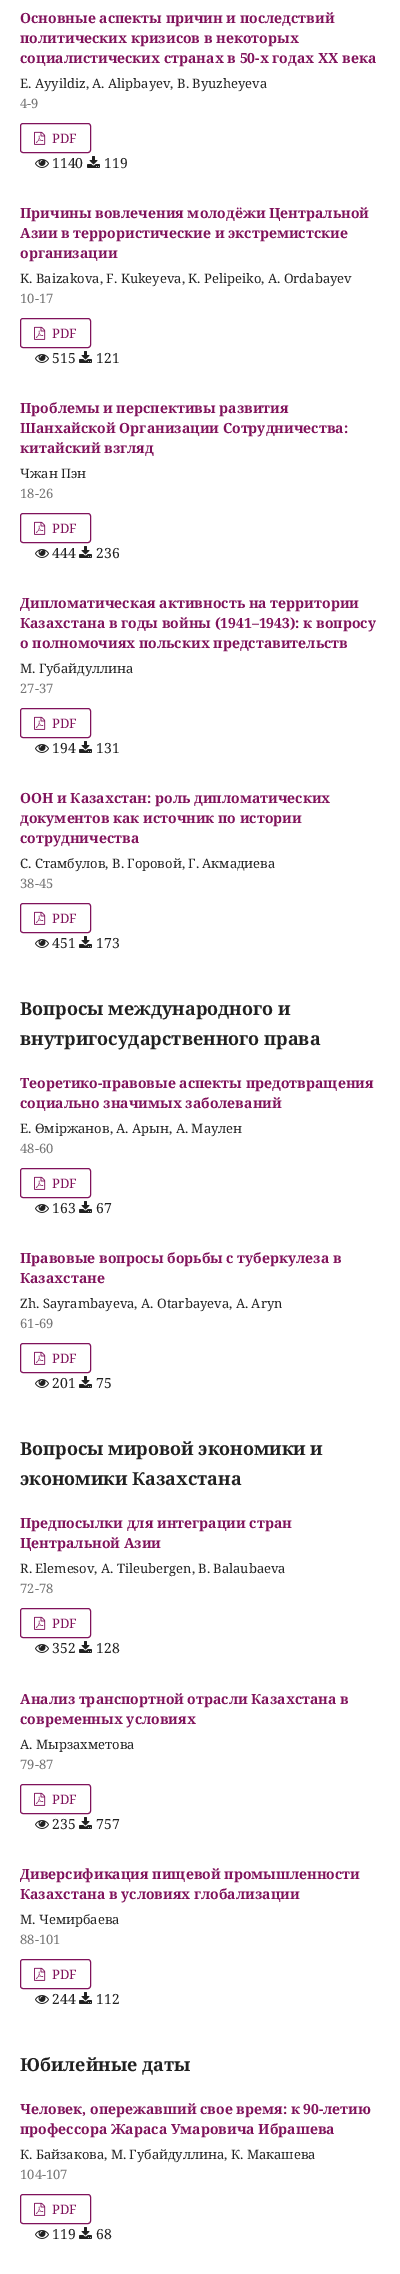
%!PS
<< /PageSize [400 2274] >> setpagedevice
/s/stroke load def
/C { dup -16 bitshift 255 div exch dup -8 bitshift 255 and 255 div exch 255 and 255 div setrgbcolor } def
/F { [ exch dup neg 0 0 3 -1 roll 0 0 ] selectfont } def
/T { moveto show } def
/R { rectfill } def
/Q { 5 dict begin { /r /h /w /y /x } { exch def } forall
  x r add y moveto x w add y 2 copy h add r arct x w add y h add x 1 index r arct
  x y h add x y r arct x y 2 copy exch w add exch r arct closepath end } def
/I { 5 dict begin { /h /w /y /x /name } { exch def } forall
  gsave x y translate w h scale
  w h 8 [w 0 0 h 0 0] name (r) file false 3 colorimage grestore end } def
0 2274 translate 1 -1 scale
4 setmiterlimit
16#FFFFFF C
0 0 400 2274 R
/NotoSerif-Bold 14 F
16#80125B C
(Основные аспекты причин и последствий) 20 23 T
(политических кризисов в некоторых) 20 43 T
(социалистических странах в 50-х годах ХХ века) 20 63 T
/NotoSerif-Regular 13 F
16#212121 C
(E. Ayyildiz, A. Alipbayev, B. Byuzheyeva) 20 88 T
16#757575 C
(4-9) 20 108 T
16#80125B C
20.5 123.5 70 29 2.5 Q s
(1.rgb) 34 131 12 14 I
(PDF) 52 143 T
(2.rgb) 35 159 14 9 I
/NotoSerif-Regular 14 F
16#212121 C
(1140) 52 168 T
(3.rgb) 87 156 13 12 I
(119) 104 168 T
/NotoSerif-Bold 14 F
16#80125B C
(Причины вовлечения молодёжи Центральной) 20 218 T
(Азии в террористические и экстремистские) 20 238 T
(организации) 20 258 T
/NotoSerif-Regular 13 F
16#212121 C
(K. Baizakova, F. Kukeyeva, K. Pelipeiko, A. Ordabayev) 20 283 T
16#757575 C
(10-17) 20 303 T
16#80125B C
20.5 318.5 70 29 2.5 Q s
(1.rgb) 34 326 12 14 I
(PDF) 52 338 T
(2.rgb) 35 354 14 9 I
/NotoSerif-Regular 14 F
16#212121 C
(515) 52 363 T
(3.rgb) 79 351 13 12 I
(121) 96 363 T
/NotoSerif-Bold 14 F
16#80125B C
(Проблемы и перспективы развития) 20 413 T
(Шанхайской Организации Сотрудничества:) 20 433 T
(китайский взгляд) 20 453 T
/NotoSerif-Regular 13 F
16#212121 C
(Чжан Пэн) 20 478 T
16#757575 C
(18-26) 20 498 T
16#80125B C
20.5 513.5 70 29 2.5 Q s
(1.rgb) 34 521 12 14 I
(PDF) 52 533 T
(2.rgb) 35 549 14 9 I
/NotoSerif-Regular 14 F
16#212121 C
(444) 52 558 T
(3.rgb) 79 546 13 12 I
(236) 96 558 T
/NotoSerif-Bold 14 F
16#80125B C
(Дипломатическая активность на территории) 20 608 T
(Казахстана в годы войны \(1941–1943\): к вопросу) 20 628 T
(о полномочиях польских представительств) 20 648 T
/NotoSerif-Regular 13 F
16#212121 C
(М. Губайдуллина) 20 673 T
16#757575 C
(27-37) 20 693 T
16#80125B C
20.5 708.5 70 29 2.5 Q s
(1.rgb) 34 716 12 14 I
(PDF) 52 728 T
(2.rgb) 35 744 14 9 I
/NotoSerif-Regular 14 F
16#212121 C
(194) 52 753 T
(3.rgb) 79 741 13 12 I
(131) 96 753 T
/NotoSerif-Bold 14 F
16#80125B C
(ООН и Казахстан: роль дипломатических) 20 803 T
(документов как источник по истории) 20 823 T
(сотрудничества) 20 843 T
/NotoSerif-Regular 13 F
16#212121 C
(С. Стамбулов, В. Горовой, Г. Акмадиева) 20 868 T
16#757575 C
(38-45) 20 888 T
16#80125B C
20.5 903.5 70 29 2.5 Q s
(1.rgb) 34 911 12 14 I
(PDF) 52 923 T
(2.rgb) 35 939 14 9 I
/NotoSerif-Regular 14 F
16#212121 C
(451) 52 948 T
(3.rgb) 79 936 13 12 I
(173) 96 948 T
/NotoSerif-Bold 18 F
(Вопросы международного и) 20 1015 T
(внутригосударственного права) 20 1045 T
/NotoSerif-Bold 14 F
16#80125B C
(Теоретико-правовые аспекты предотвращения) 20 1088 T
(социально значимых заболеваний) 20 1108 T
/NotoSerif-Regular 13 F
16#212121 C
(Е. Өміржанов, А. Арын, А. Маулен) 20 1133 T
16#757575 C
(48-60) 20 1153 T
16#80125B C
20.5 1168.5 70 29 2.5 Q s
(1.rgb) 34 1176 12 14 I
(PDF) 52 1188 T
(2.rgb) 35 1204 14 9 I
/NotoSerif-Regular 14 F
16#212121 C
(163) 52 1213 T
(3.rgb) 79 1201 13 12 I
(67) 96 1213 T
/NotoSerif-Bold 14 F
16#80125B C
(Правовые вопросы борьбы с туберкулеза в) 20 1263 T
(Казахстане) 20 1283 T
/NotoSerif-Regular 13 F
16#212121 C
(Zh. Sayrambayeva, A. Otarbayeva, A. Aryn) 20 1308 T
16#757575 C
(61-69) 20 1328 T
16#80125B C
20.5 1343.5 70 29 2.5 Q s
(1.rgb) 34 1351 12 14 I
(PDF) 52 1363 T
(2.rgb) 35 1379 14 9 I
/NotoSerif-Regular 14 F
16#212121 C
(201) 52 1388 T
(3.rgb) 79 1376 13 12 I
(75) 96 1388 T
/NotoSerif-Bold 18 F
(Вопросы мировой экономики и) 20 1455 T
(экономики Казахстана) 20 1485 T
/NotoSerif-Bold 14 F
16#80125B C
(Предпосылки для интеграции стран) 20 1528 T
(Центральной Азии) 20 1548 T
/NotoSerif-Regular 13 F
16#212121 C
(R. Elemesov, A. Tileubergen, B. Balaubaeva) 20 1573 T
16#757575 C
(72-78) 20 1593 T
16#80125B C
20.5 1608.5 70 29 2.5 Q s
(1.rgb) 34 1616 12 14 I
(PDF) 52 1628 T
(2.rgb) 35 1644 14 9 I
/NotoSerif-Regular 14 F
16#212121 C
(352) 52 1653 T
(3.rgb) 79 1641 13 12 I
(128) 96 1653 T
/NotoSerif-Bold 14 F
16#80125B C
(Анализ транспортной отрасли Казахстана в) 20 1704 T
(современных условиях) 20 1724 T
/NotoSerif-Regular 13 F
16#212121 C
(А. Мырзахметова) 20 1749 T
16#757575 C
(79-87) 20 1769 T
16#80125B C
20.5 1784.5 70 29 2.5 Q s
(1.rgb) 34 1792 12 14 I
(PDF) 52 1804 T
(2.rgb) 35 1820 14 9 I
/NotoSerif-Regular 14 F
16#212121 C
(235) 52 1829 T
(3.rgb) 79 1817 13 12 I
(757) 96 1829 T
/NotoSerif-Bold 14 F
16#80125B C
(Диверсификация пищевой промышленности) 20 1879 T
(Казахстана в условиях глобализации) 20 1899 T
/NotoSerif-Regular 13 F
16#212121 C
(М. Чемирбаева) 20 1924 T
16#757575 C
(88-101) 20 1944 T
16#80125B C
20.5 1959.5 70 29 2.5 Q s
(1.rgb) 34 1967 12 14 I
(PDF) 52 1979 T
(2.rgb) 35 1995 14 9 I
/NotoSerif-Regular 14 F
16#212121 C
(244) 52 2004 T
(3.rgb) 79 1992 13 12 I
(112) 96 2004 T
/NotoSerif-Bold 18 F
(Юбилейные даты) 20 2071 T
/NotoSerif-Bold 14 F
16#80125B C
(Человек, опережавший свое время: к 90-летию) 20 2114 T
(профессора Жараса Умаровича Ибрашева) 20 2134 T
/NotoSerif-Regular 13 F
16#212121 C
(К. Байзакова, М. Губайдуллина, К. Макашева) 20 2159 T
16#757575 C
(104-107) 20 2179 T
16#80125B C
20.5 2194.5 70 29 2.5 Q s
(1.rgb) 34 2202 12 14 I
(PDF) 52 2214 T
(2.rgb) 35 2230 14 9 I
/NotoSerif-Regular 14 F
16#212121 C
(119) 52 2239 T
(3.rgb) 79 2227 13 12 I
(68) 96 2239 T
showpage
